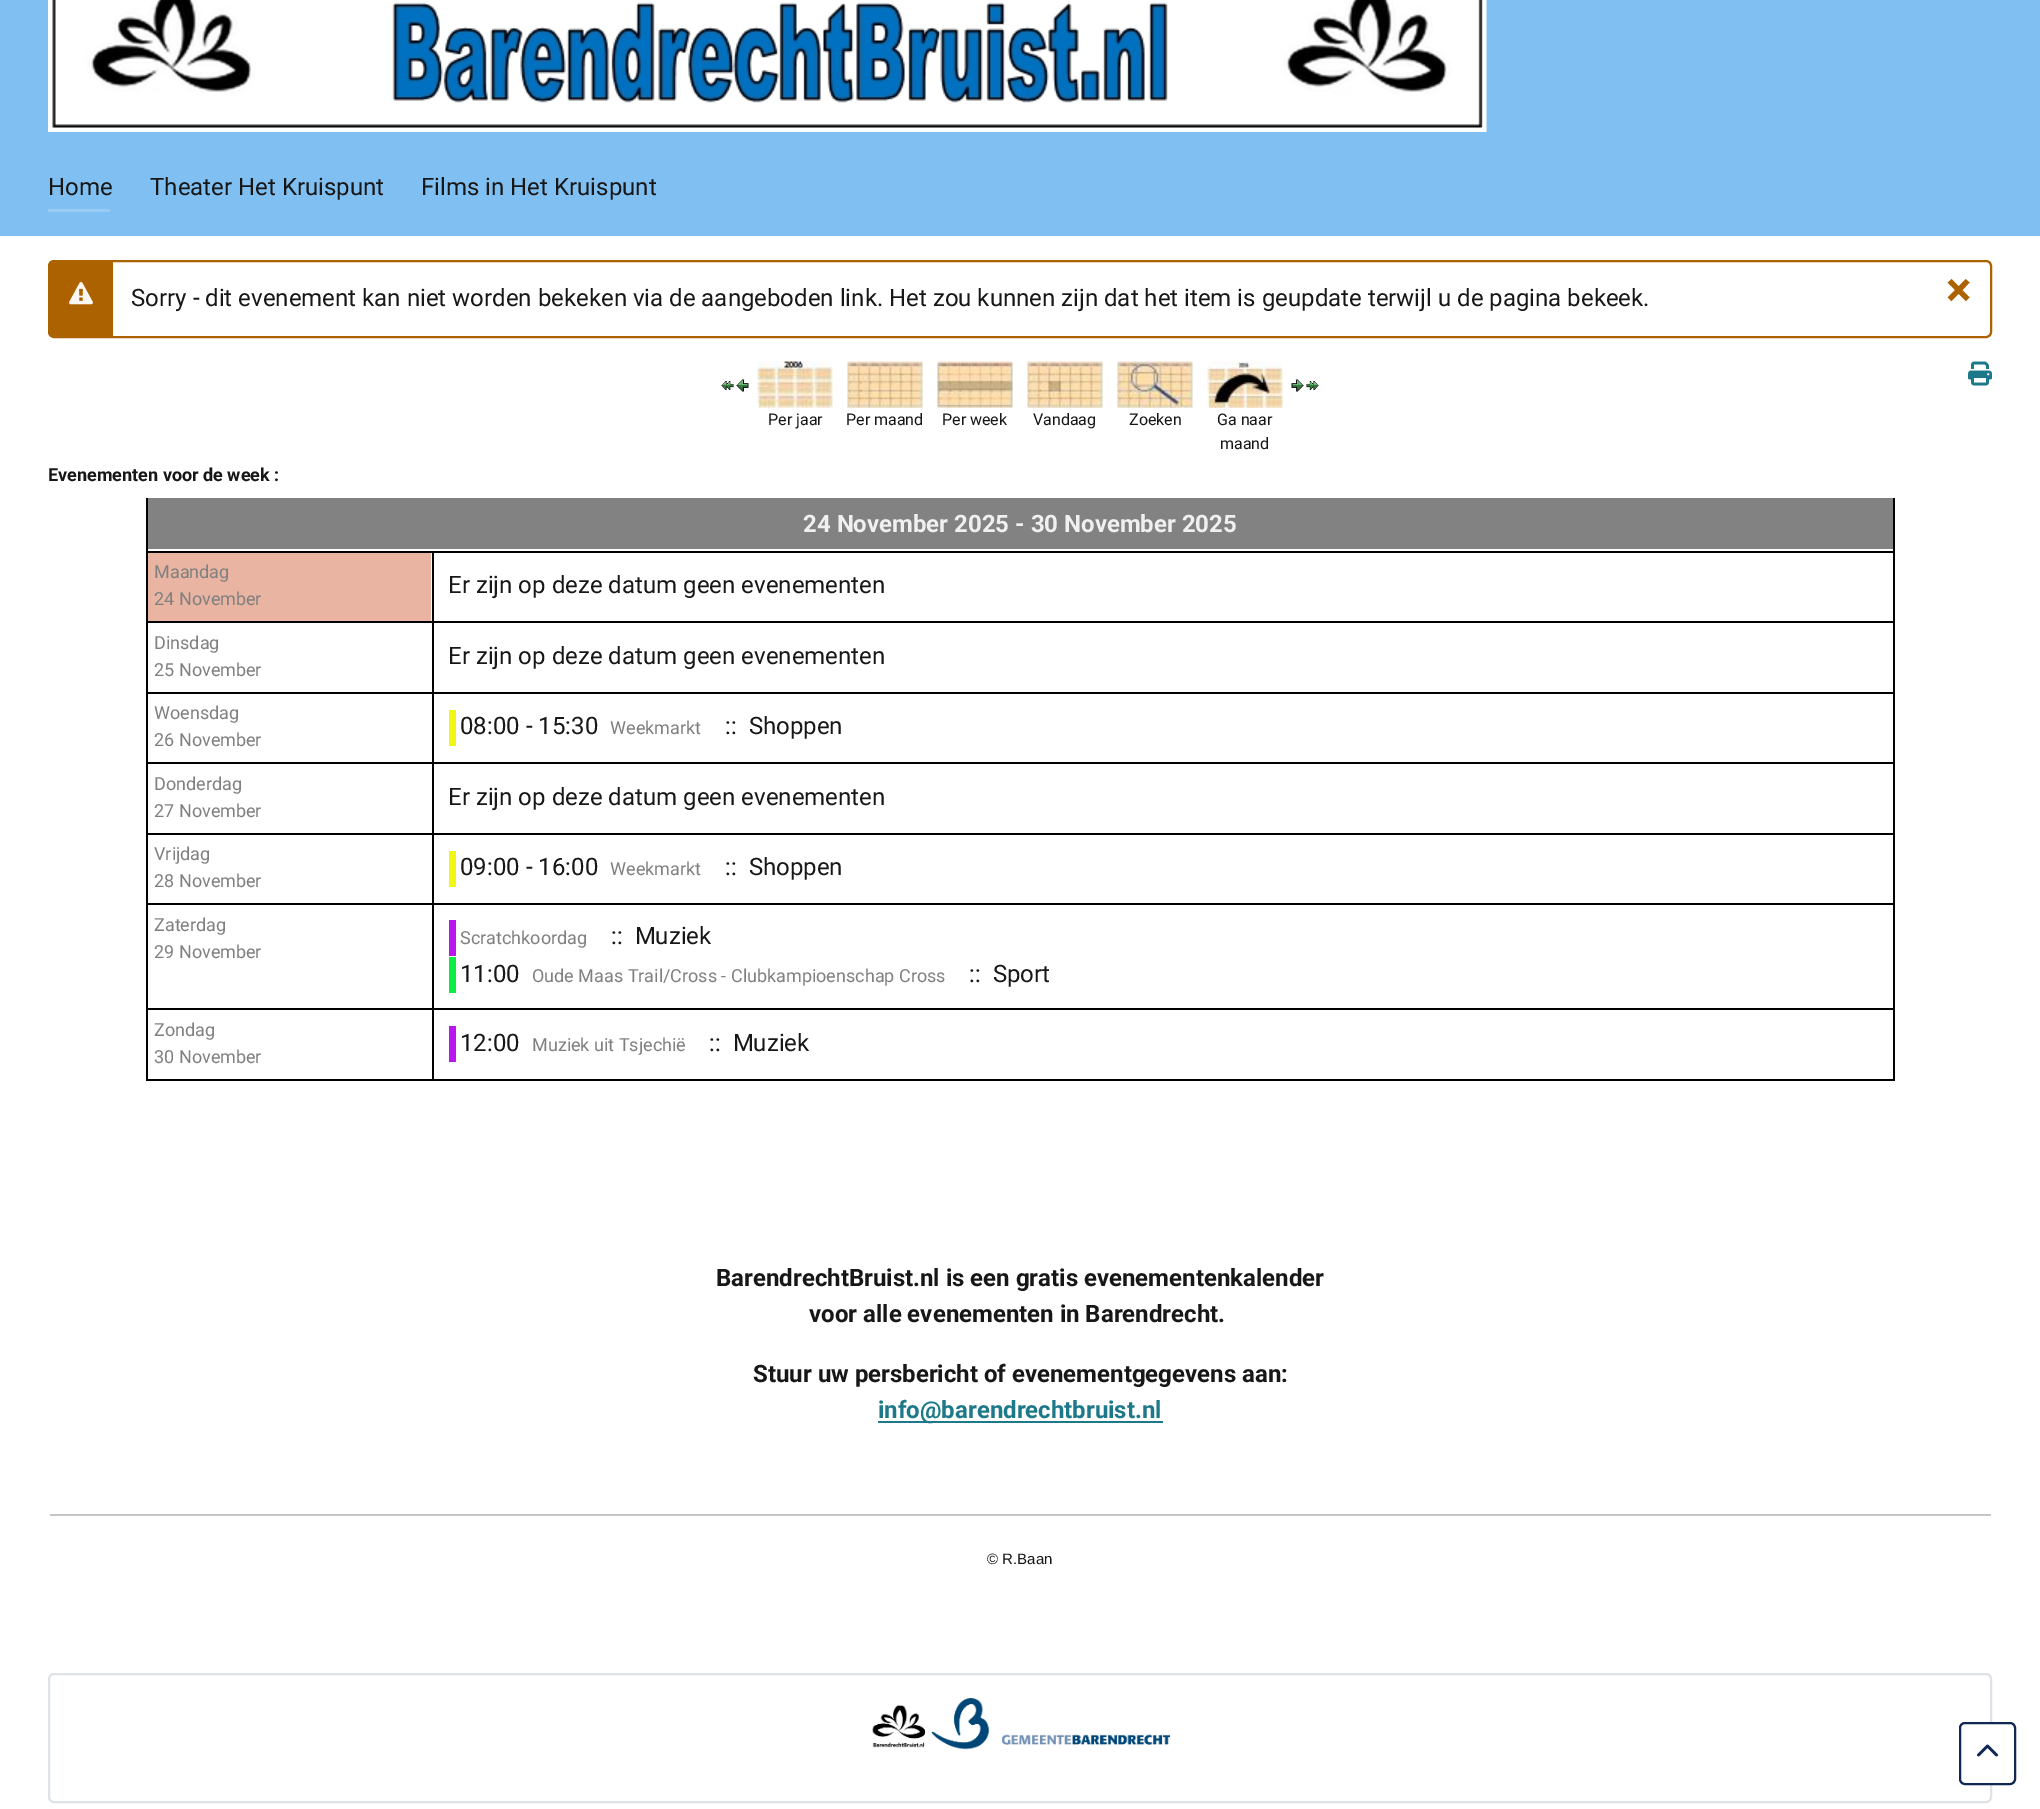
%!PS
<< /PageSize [2040 1809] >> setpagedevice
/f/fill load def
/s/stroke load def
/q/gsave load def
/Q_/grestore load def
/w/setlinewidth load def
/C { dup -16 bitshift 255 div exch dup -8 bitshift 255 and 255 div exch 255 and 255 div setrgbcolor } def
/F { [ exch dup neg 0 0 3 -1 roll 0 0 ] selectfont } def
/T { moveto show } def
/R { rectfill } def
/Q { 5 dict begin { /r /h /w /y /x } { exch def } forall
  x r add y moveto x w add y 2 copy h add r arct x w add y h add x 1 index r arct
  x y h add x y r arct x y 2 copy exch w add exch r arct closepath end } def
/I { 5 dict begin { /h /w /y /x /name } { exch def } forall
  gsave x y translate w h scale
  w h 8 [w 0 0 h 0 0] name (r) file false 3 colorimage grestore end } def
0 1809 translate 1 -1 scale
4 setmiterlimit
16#FFFFFF C
0 0 2040 1809 R
16#80BFF2 C
0 0 2040 236 R
(1.rgb) 48 0 1439 132 I
/Roboto-Regular 24 F
16#171717 C
(Home) 48 195 T
16#99CCF5 C
48 209 62 3 R
16#171717 C
(Theater Het Kruispunt) 150 195 T
(Films in Het Kruispunt) 421 195 T
16#AD6200 C
2 w
49 261 1942 76 5 Q s
50 261 63 75 R
(2.rgb) 69 282 24 23 I
16#171717 C
(Sorry - dit evenement kan niet worden bekeken via de aangeboden link. Het zou kunnen zijn dat het item is geupdate terwijl u de pagina bekeek.) 131 306 T
/Roboto-Bold 48 F
16#AD6200 C
(×) 1946 306 T
(3.rgb) 1968 361 24 25 I
(4.rgb) 721 381 13 9 I
(5.rgb) 736 379 13 13 I
(6.rgb) 757 361 76 47 I
(7.rgb) 847 361 76 47 I
(8.rgb) 937 361 76 47 I
(9.rgb) 1027 361 76 47 I
(10.rgb) 1117 361 76 47 I
(11.rgb) 1207 361 76 47 I
(12.rgb) 1291 379 13 13 I
(13.rgb) 1306 381 13 9 I
/Roboto-Regular 16 F
16#171717 C
(Per jaar) 768 425 T
(Per maand) 846 425 T
(Per week) 942 425 T
(Vandaag) 1033 425 T
(Zoeken) 1129 425 T
(Ga naar) 1217 425 T
(maand) 1220 449 T
/Roboto-Bold 18 F
(Evenementen voor de week :) 48 481 T
16#000000 C
1893 498 2 582 R
146 1079 1749 2 R
146 498 2 582 R
16#828282 C
148 498 1745 51 R
/Roboto-Bold 24 F
16#F0F0F0 C
(24 November 2025 - 30 November 2025) 803 532 T
16#E9B4A1 C
148 553 283 68 R
16#000000 C
146 551 1749 2 R
146 621 1749 2 R
146 692 1749 2 R
146 762 1749 2 R
146 833 1749 2 R
146 903 1749 2 R
146 1008 1749 2 R
432 1008 2 72 R
432 903 2 107 R
432 833 2 72 R
432 762 2 72 R
432 692 2 72 R
432 621 2 72 R
432 551 2 72 R
/Roboto-Regular 18 F
16#808080 C
(Maandag) 154 578 T
(24 November) 154 605 T
/Roboto-Regular 24 F
16#171717 C
(Er zijn op deze datum geen evenementen) 448 593 T
/Roboto-Regular 18 F
16#808080 C
(Dinsdag) 154 649 T
(25 November) 154 676 T
/Roboto-Regular 24 F
16#171717 C
(Er zijn op deze datum geen evenementen) 448 664 T
/Roboto-Regular 18 F
16#808080 C
(Woensdag) 154 719 T
(26 November) 154 746 T
16#EFF713 C
449 710 7 36 R
/Roboto-Regular 24 F
16#171717 C
(08:00 - 15:30) 460 734 T
/Roboto-Regular 18 F
16#808080 C
(Weekmarkt) 610 734 T
/Roboto-Regular 24 F
16#171717 C
(::  Shoppen) 725 734 T
/Roboto-Regular 18 F
16#808080 C
(Donderdag) 154 790 T
(27 November) 154 817 T
/Roboto-Regular 24 F
16#171717 C
(Er zijn op deze datum geen evenementen) 448 805 T
/Roboto-Regular 18 F
16#808080 C
(Vrijdag) 154 860 T
(28 November) 154 887 T
16#EFF713 C
449 851 7 36 R
/Roboto-Regular 24 F
16#171717 C
(09:00 - 16:00) 460 875 T
/Roboto-Regular 18 F
16#808080 C
(Weekmarkt) 610 875 T
/Roboto-Regular 24 F
16#171717 C
(::  Shoppen) 725 875 T
/Roboto-Regular 18 F
16#808080 C
(Zaterdag) 154 931 T
(29 November) 154 958 T
16#B916F0 C
449 920 7 36 R
16#808080 C
(Scratchkoordag) 460 944 T
/Roboto-Regular 24 F
16#171717 C
(::  Muziek) 611 944 T
16#0CED41 C
449 957 7 36 R
16#171717 C
(11:00) 460 982 T
/Roboto-Regular 18 F
16#808080 C
(Oude Maas Trail/Cross - Clubkampioenschap Cross) 532 982 T
/Roboto-Regular 24 F
16#171717 C
(::  Sport) 969 982 T
/Roboto-Regular 18 F
16#808080 C
(Zondag) 154 1036 T
(30 November) 154 1063 T
16#B916F0 C
449 1026 7 36 R
/Roboto-Regular 24 F
16#171717 C
(12:00) 460 1051 T
/Roboto-Regular 18 F
16#808080 C
(Muziek uit Tsjechië) 532 1051 T
/Roboto-Regular 24 F
16#171717 C
(::  Muziek) 709 1051 T
/Roboto-Bold 24 F
(BarendrechtBruist.nl is een gratis evenementenkalender) 716 1286 T
(voor alle evenementen in Barendrecht.) 809 1322 T
(Stuur uw persbericht of evenementgegevens aan:) 753 1382 T
16#1D7989 C
878 1421 285 2 R
(info@barendrechtbruist.nl) 878 1418 T
16#C5C5C5 C
50 1514 1941 2 R
/LiberationSans-Regular 15 F
16#171717 C
(© R.Baan) 987 1564 T
16#DFE3E7 C
49 1674 1942 128 5 Q s
(14.rgb) 872 1698 298 52 I
16#FFFFFF C
1960 1723 55 61 5 Q q f Q_
16#112855 C
s
(15.rgb) 1977 1744 21 13 I
showpage
